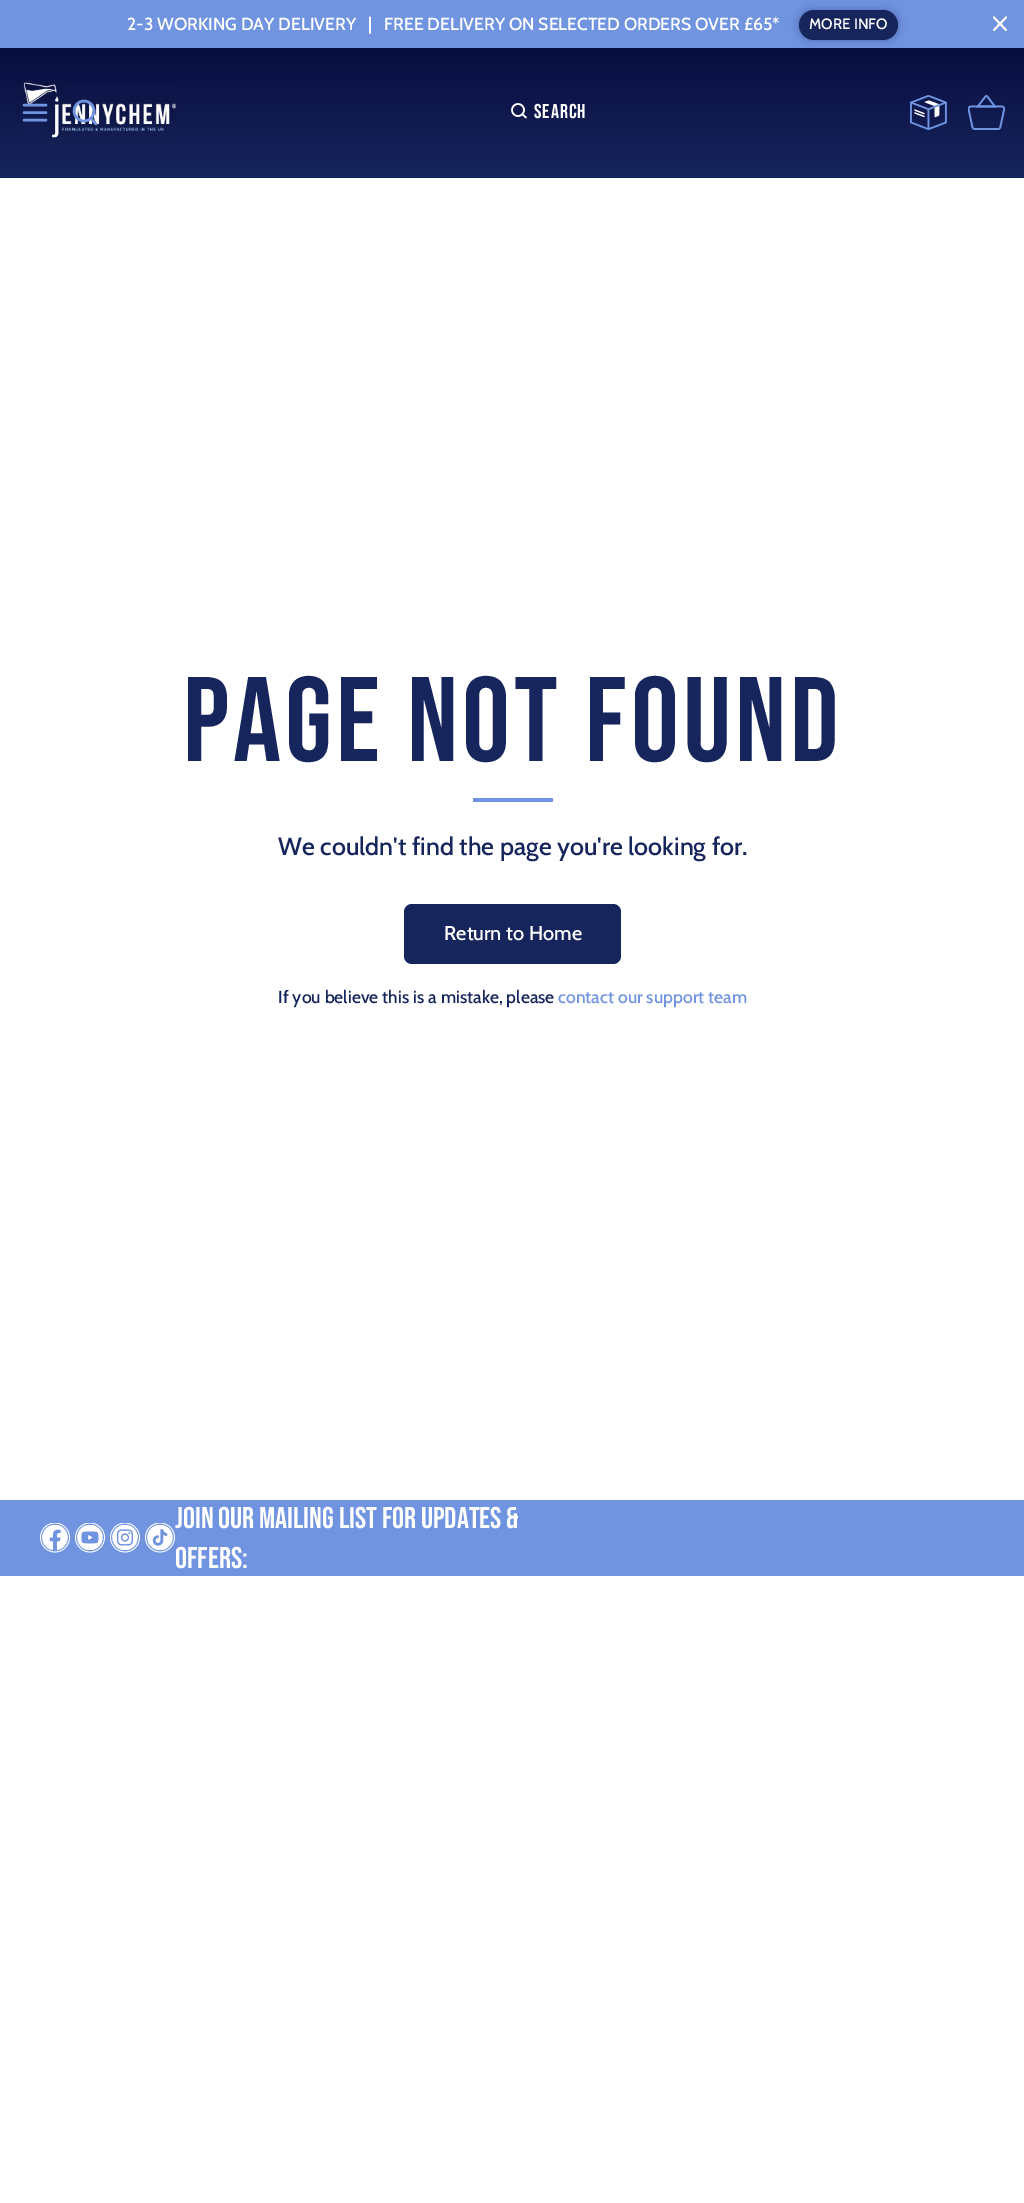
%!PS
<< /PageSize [1024 2203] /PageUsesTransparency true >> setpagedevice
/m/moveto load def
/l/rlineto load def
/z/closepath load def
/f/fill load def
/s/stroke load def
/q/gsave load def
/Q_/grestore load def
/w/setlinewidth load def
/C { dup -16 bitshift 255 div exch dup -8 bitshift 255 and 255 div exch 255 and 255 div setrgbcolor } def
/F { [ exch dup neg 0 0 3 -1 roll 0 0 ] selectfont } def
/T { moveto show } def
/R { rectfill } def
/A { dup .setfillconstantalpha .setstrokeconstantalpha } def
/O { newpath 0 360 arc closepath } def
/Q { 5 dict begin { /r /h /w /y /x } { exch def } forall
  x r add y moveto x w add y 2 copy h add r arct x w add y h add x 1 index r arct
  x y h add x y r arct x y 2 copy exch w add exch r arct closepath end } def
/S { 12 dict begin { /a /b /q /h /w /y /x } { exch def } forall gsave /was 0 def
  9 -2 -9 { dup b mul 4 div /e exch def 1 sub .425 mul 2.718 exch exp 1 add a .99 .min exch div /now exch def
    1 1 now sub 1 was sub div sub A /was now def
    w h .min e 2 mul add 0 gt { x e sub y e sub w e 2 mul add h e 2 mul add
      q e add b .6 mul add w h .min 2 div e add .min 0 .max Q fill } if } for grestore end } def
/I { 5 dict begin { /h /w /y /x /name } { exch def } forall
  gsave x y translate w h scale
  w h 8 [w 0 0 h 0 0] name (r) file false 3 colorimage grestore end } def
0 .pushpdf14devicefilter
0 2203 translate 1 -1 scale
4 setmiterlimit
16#FFFFFF C
0 0 1024 2203 R
16#7094E0 C
0 0 1024 48 R
/Cabin-Medium 17.5 F
16#FFFFFF C
(2-3 WORKING DAY DELIVERY   |) 127 30 T
(FREE DELIVERY ON SELECTED ORDERS OVER £65*) 384 30 T
q 0 48 m 1024 0 l 0 130 l -1024 0 l z clip newpath
<< /ShadingType 2 /ColorSpace /DeviceRGB /Coords [513 47 513 178] /Extend [true true] /Function << /FunctionType 2 /Domain [0 1] /C0 [.031 .051 .247] /C1 [.09 .145 .365] /N 1 >> >> shfill Q_
16#080D3F C
799 10 99 30 15 4 .31 S
16#17255D C
799 10 99 30 15 Q f
/Cabin-Medium 15 F
16#FFFFFF C
(MORE INFO) 809 29 T
1.9 w
1 setlinecap
1 setlinejoin
994 17.5 m 12 12.5 l 1006 17.5 m -12 12.5 l s
(1.rgb) 23 82 154 56 I
(2.rgb) 910 95 37 35 I
(3.rgb) 968 95 37 35 I
16#7094E0 C
2.5 w
24 105 m 22 0 l 24 112.5 m 22 0 l 24 120 m 22 0 l s
0 setlinecap
0 setlinejoin
84 111 10 O s
1 setlinecap
1 setlinejoin
96 124 m -5 -5.5 l s
16#FFFFFF C
1.6 w
0 setlinecap
0 setlinejoin
518 110 6 O s
1 setlinecap
1 setlinejoin
526 117.5 m -3.5 -3 l s
/BebasNeue-Regular 20 F
534 118 m 1 0 (Search) ashow
/BebasNeue-Regular 120 F
16#17255D C
183 761 m 4 0 (Page Not Found) ashow
16#7094E0 C
473 798 80 4 R
/Cabin-Medium 25 F
16#17255D C
(We couldn't find the page you're looking for.) 278 855 T
404 904 217 60 8 Q f
/Cabin-Medium 20 F
16#FFFFFF C
(Return to Home) 444 940 T
/Cabin-Medium 17.5 F
16#17255D C
(If you believe this is a mistake, please) 278 1003 T
16#7094E0 C
(contact our support team) 558 1003 T
0 1500 1024 76 R
(4.rgb) 40 1523 30 30 I
(5.rgb) 75 1523 30 30 I
(6.rgb) 110 1523 30 30 I
(7.rgb) 145 1523 30 30 I
/BebasNeue-Regular 30 F
16#FFFFFF C
(Join Our Mailing List For Updates &) 175 1528 T
(Offers:) 175 1568 T
.poppdf14devicefilter showpage
